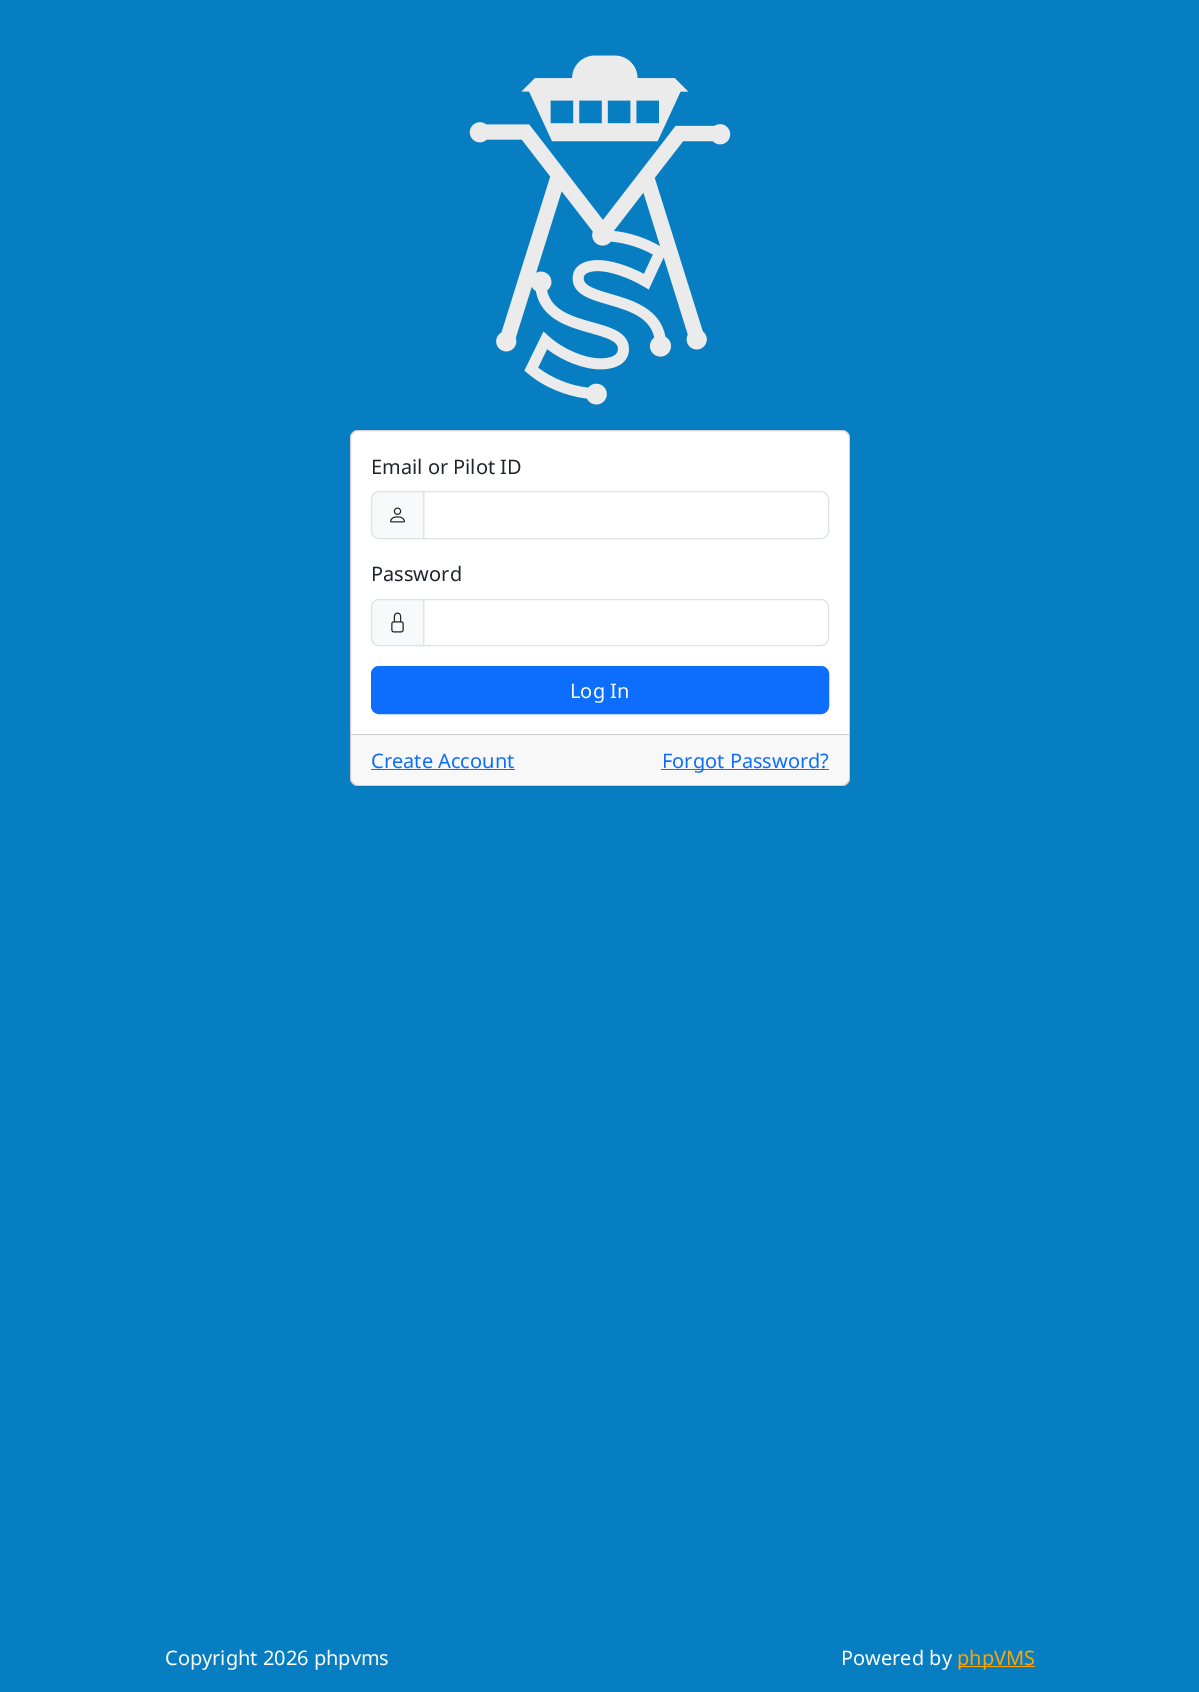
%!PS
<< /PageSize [1199 1692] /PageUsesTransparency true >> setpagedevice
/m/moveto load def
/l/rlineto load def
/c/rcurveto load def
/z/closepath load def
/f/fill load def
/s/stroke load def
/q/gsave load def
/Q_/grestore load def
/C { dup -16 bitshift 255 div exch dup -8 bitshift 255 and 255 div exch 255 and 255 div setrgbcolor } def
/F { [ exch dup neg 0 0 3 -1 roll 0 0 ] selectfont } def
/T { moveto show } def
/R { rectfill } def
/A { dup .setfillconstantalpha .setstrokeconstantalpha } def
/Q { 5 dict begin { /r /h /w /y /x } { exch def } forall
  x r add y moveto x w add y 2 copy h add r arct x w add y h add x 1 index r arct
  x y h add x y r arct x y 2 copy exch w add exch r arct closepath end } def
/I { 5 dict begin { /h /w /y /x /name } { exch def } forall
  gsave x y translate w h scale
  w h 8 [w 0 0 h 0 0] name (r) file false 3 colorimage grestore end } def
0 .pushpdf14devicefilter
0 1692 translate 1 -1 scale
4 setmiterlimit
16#067EC1 C
0 0 1199 1692 R
(1.rgb) 469 55 262 350 I
16#FFFFFF C
350 430 500 356 8 Q f
0.18 A
16#000000 C
350.5 430.5 499 355 7.5 Q s
/NotoSans-Regular 20 F
1 A
16#212529 C
(Email or Pilot ID) 371 474 T
16#F8F9FA C
379 491.5 m 44.5 0 l 0 47 l -44.5 0 l -4 0 -7.5 -3.5 -7.5 -7.5 c 0 -32 l 0 -4 3.5 -7.5 7.5 -7.5 c z q f Q_
16#DEE2E6 C
s
(2.rgb) 390 507 15 16 I
423.5 491.5 m 397.5 0 l 4 0 7.5 3.5 7.5 7.5 c 0 32 l 0 4 -3.5 7.5 -7.5 7.5 c -397.5 0 l z s
16#212529 C
(Password) 371 581 T
16#F8F9FA C
379 599.5 m 44.5 0 l 0 46 l -44.5 0 l -4 0 -7.5 -3.5 -7.5 -7.5 c 0 -31 l 0 -4 3.5 -7.5 7.5 -7.5 c z q f Q_
16#DEE2E6 C
s
(3.rgb) 391 612 13 21 I
423.5 599.5 m 397.5 0 l 4 0 7.5 3.5 7.5 7.5 c 0 31 l 0 4 -3.5 7.5 -7.5 7.5 c -397.5 0 l z s
16#0D6EFD C
371.5 666.5 457 47 7.5 Q q f Q_
s
16#FFFFFF C
(Log In) 570 698 T
0.03 A
16#212529 C
351 735 498 50 R
1 A
16#CDCDCD C
351 734 498 1 R
16#0D6EFD C
(Create Account) 371 768 T
371 769 144 1 R
661 769 168 1 R
(Forgot Password?) 662 768 T
16#FFFFFF C
(Copyright 2026 phpvms) 165 1665 T
(Powered by) 841 1665 T
16#FFA500 C
958 1666 77 1 R
(phpVMS) 957 1665 T
.poppdf14devicefilter showpage
